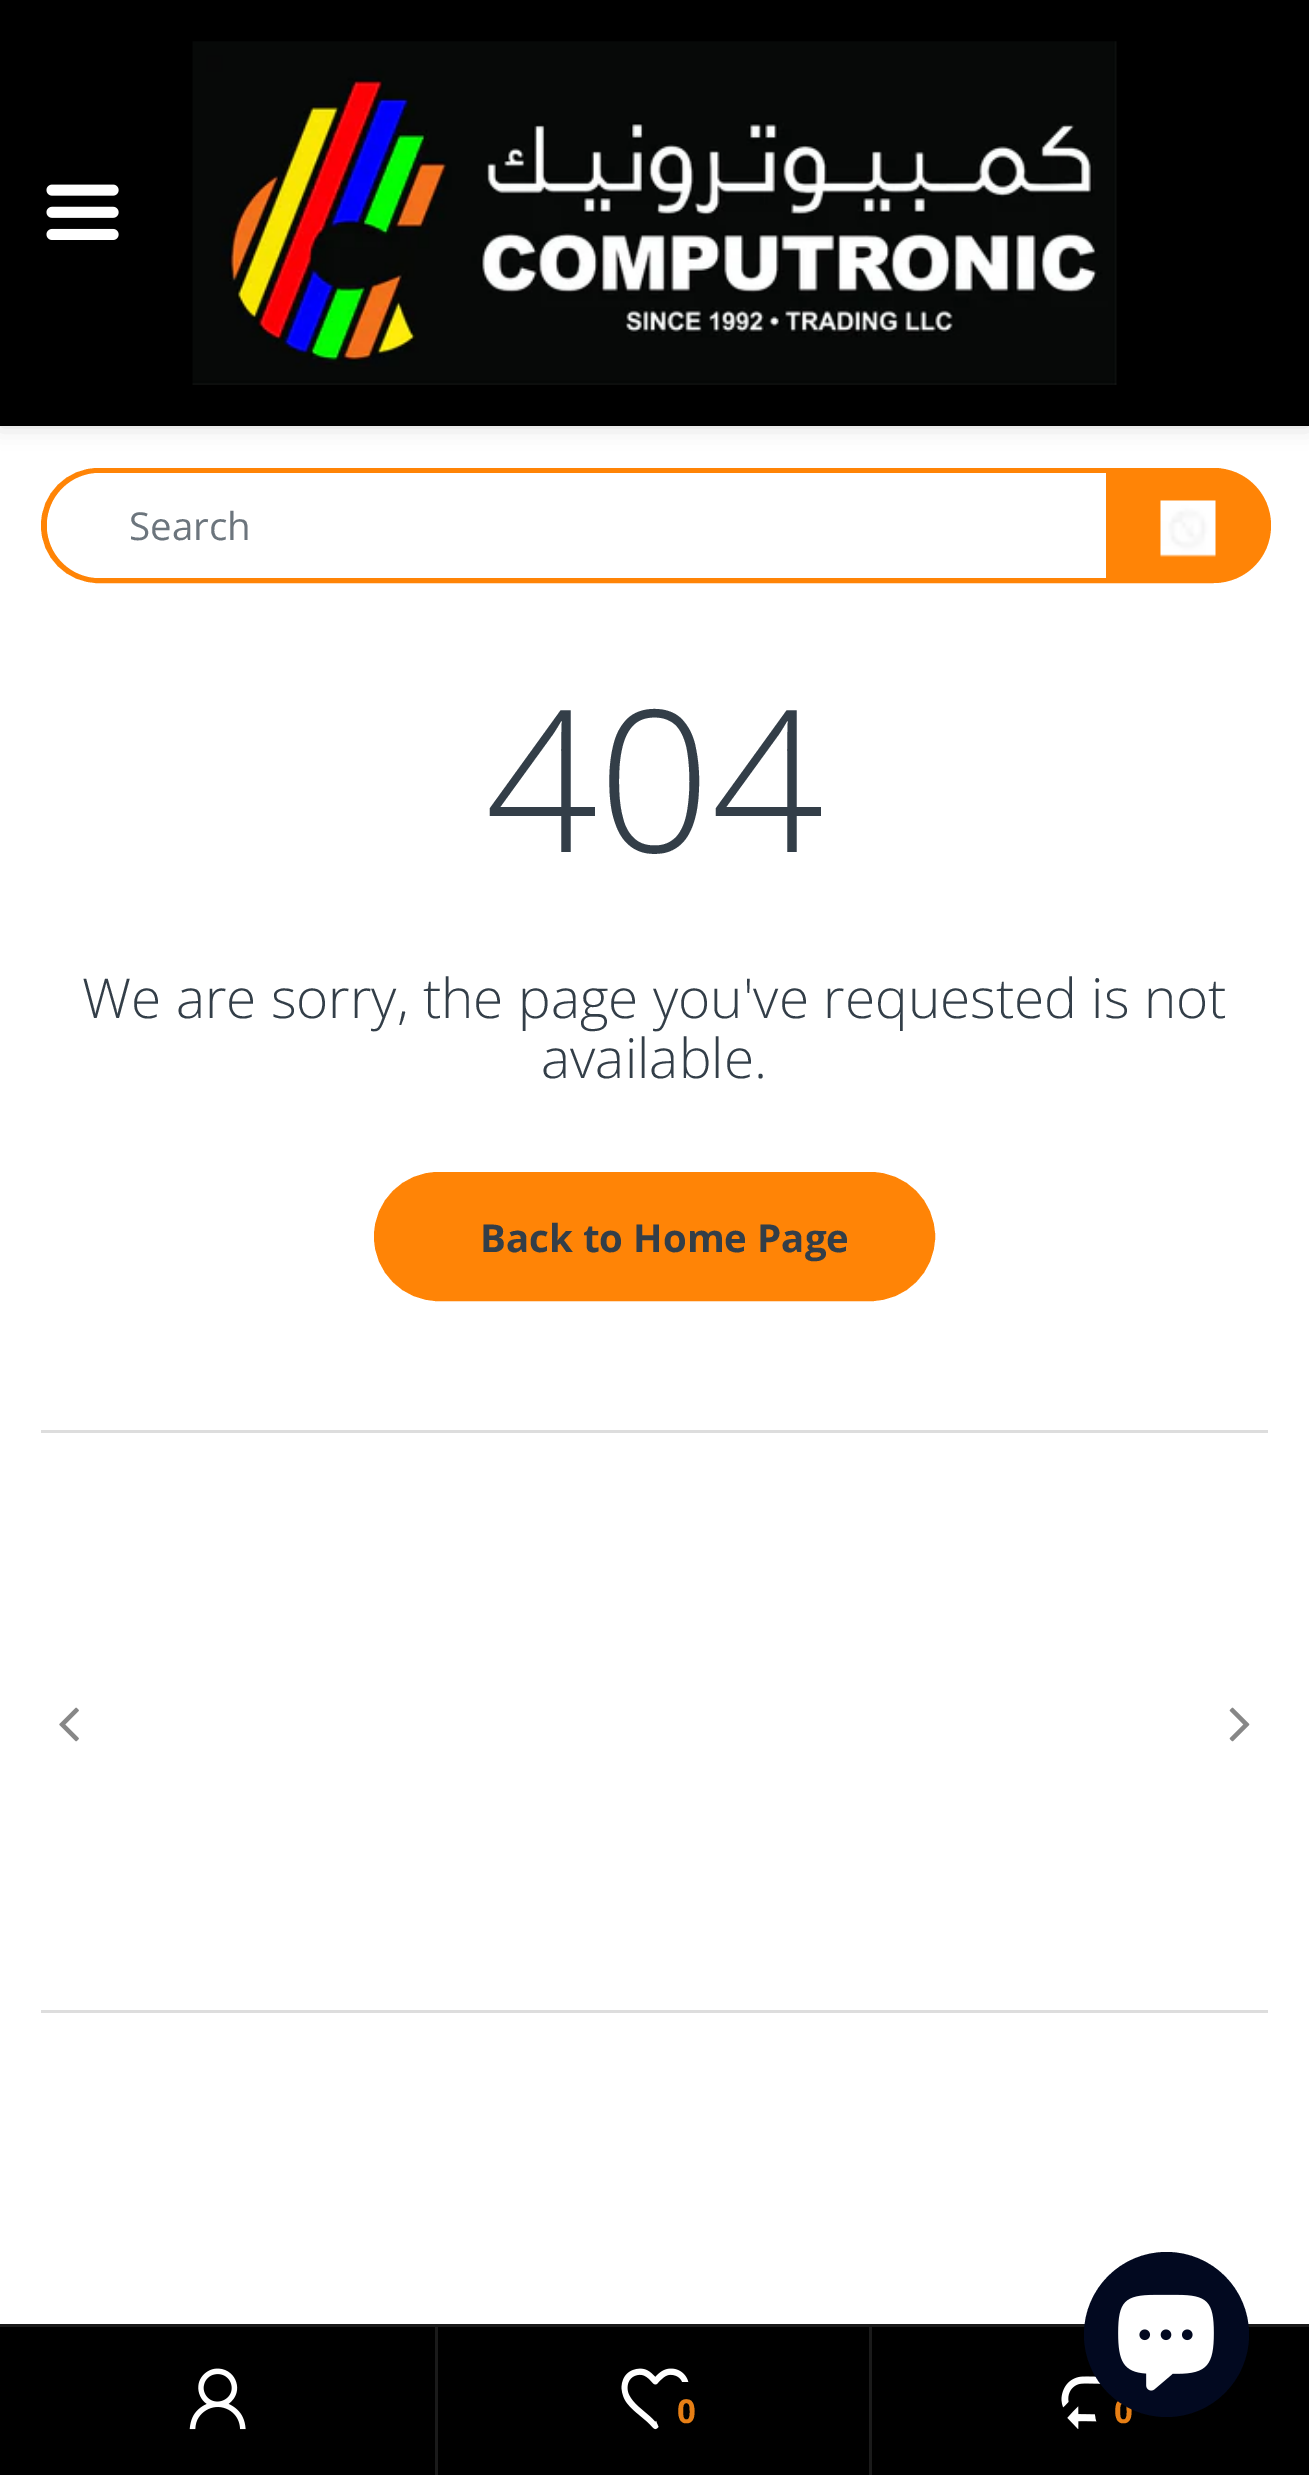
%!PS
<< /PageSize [1309 2475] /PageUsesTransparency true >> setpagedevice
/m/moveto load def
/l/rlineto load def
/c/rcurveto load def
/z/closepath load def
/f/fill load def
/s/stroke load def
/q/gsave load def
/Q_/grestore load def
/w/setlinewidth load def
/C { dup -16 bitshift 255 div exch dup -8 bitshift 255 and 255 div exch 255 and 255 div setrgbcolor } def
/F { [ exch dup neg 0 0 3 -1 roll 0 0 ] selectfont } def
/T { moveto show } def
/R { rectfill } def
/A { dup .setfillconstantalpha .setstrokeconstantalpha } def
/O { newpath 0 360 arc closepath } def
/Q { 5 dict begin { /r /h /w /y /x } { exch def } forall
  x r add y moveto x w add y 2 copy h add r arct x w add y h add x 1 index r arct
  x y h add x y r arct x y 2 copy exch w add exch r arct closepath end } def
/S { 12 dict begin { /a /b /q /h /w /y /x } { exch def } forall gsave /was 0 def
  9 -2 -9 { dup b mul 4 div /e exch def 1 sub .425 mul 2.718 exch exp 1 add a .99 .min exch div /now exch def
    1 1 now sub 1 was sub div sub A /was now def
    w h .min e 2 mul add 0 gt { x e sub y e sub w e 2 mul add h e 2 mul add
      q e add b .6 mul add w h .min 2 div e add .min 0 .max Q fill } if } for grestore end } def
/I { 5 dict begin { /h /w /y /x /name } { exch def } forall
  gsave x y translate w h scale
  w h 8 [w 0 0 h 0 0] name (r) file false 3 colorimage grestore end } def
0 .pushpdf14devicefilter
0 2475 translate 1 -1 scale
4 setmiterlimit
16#FFFFFF C
0 0 1309 2475 R
16#C9C9C9 C
0 0 1309 426 0 11 .75 S
16#000000 C
0 0 1309 426 R
(1.rgb) 46 184 73 56 I
(2.rgb) 192 41 925 344 I
16#FF8406 C
6 w
44 471 1221 109 54.5 Q s
16#FFFFFF C
47 473 1215 105 52.5 Q f
/OpenSans-Regular 38.5 F
16#6C757D C
(Search) 129 540 T
16#FF8406 C
1106 468 m 107.5 0 l 32 0 57.5 25.5 57.5 57.5 c 0 32 -25.5 57.5 -57.5 57.5 c -107.5 0 l z f
(3.rgb) 1160 500 56 57 I
/OpenSans-Light 198 F
16#333E48 C
(404) 485 852 T
/OpenSans-Light 55 F
(We are sorry, the page you've requested is not) 82 1018 T
(available.) 541 1078 T
16#FF8406 C
375.5 1173.5 558 126 63 Q q f Q_
3 w
s
/OpenSans-Bold 38.5 F
16#333E48 C
(Back to Home Page) 480 1252 T
16#DDDDDD C
41 1430 1227 3 R
41 2010 1227 3 R
(4.rgb) 59 1707 20 35 I
(5.rgb) 1229 1707 21 35 I
16#000000 C
0 2327 1309 148 R
16#1A1A1A C
0 2324 1309 3 R
435 2327 3 148 R
(6.rgb) 189 2368 57 62 I
869 2327 3 148 R
(7.rgb) 621 2368 68 62 I
16#000000 C
685 2412 30 O f
/OpenSans-Bold 33 F
16#E77F15 C
(0) 677 2423 T
(8.rgb) 1061 2376 45 53 I
16#000000 C
1125 2412 30 O f
16#E77F15 C
(0) 1114 2423 T
16#020920 C
1166.5 2334.5 82.5 O f
(9.rgb) 1118 2294 96 97 I
.poppdf14devicefilter showpage
